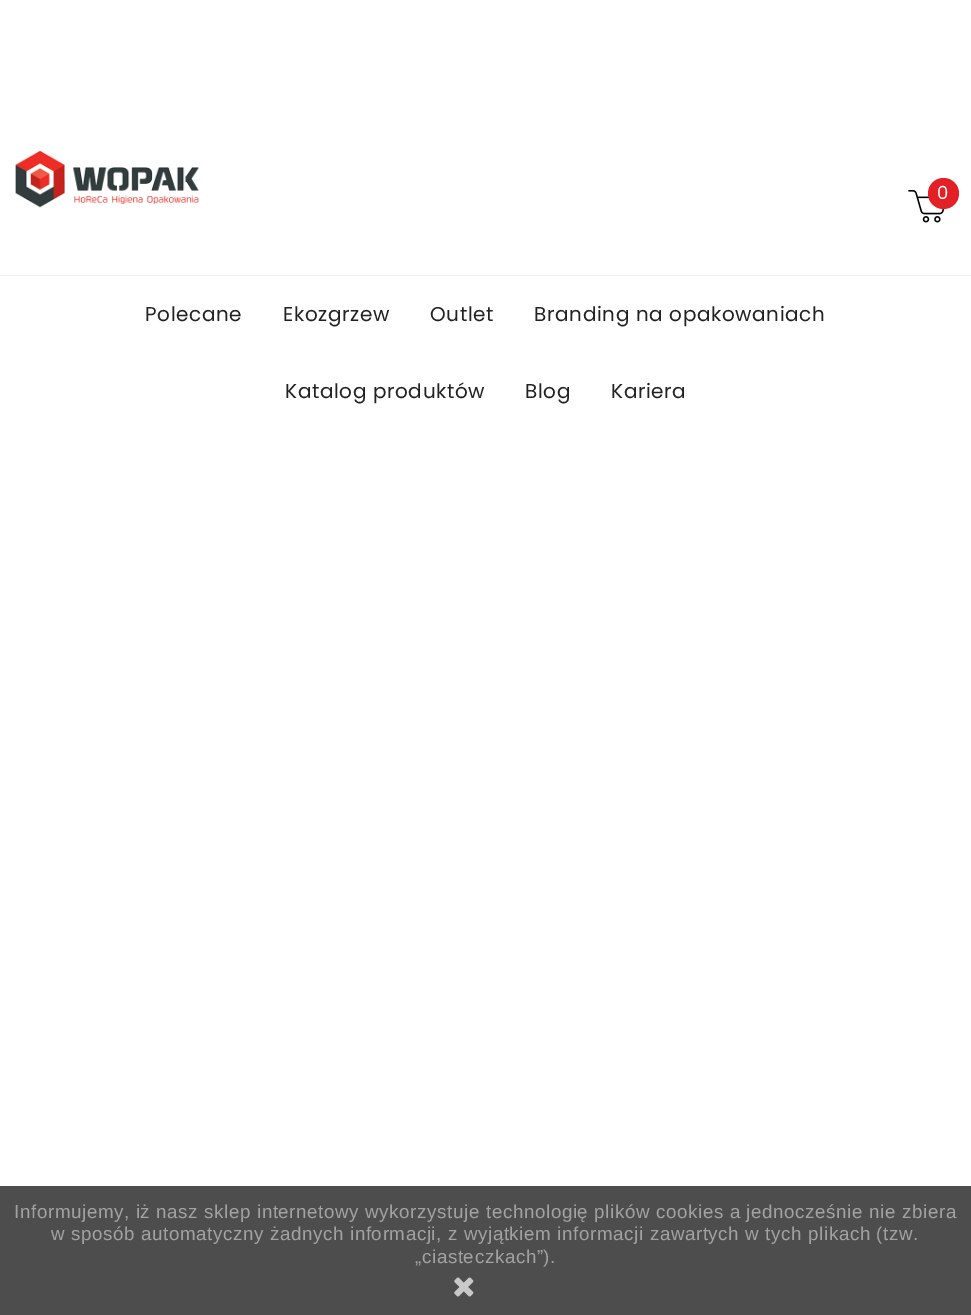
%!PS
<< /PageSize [971 1315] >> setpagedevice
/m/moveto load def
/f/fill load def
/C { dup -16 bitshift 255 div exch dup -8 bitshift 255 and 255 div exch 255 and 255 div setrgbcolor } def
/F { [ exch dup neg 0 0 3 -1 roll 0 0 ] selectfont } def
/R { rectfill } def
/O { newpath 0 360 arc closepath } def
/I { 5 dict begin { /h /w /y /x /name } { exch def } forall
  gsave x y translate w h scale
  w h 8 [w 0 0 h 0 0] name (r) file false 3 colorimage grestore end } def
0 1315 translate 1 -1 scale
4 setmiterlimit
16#FFFFFF C
0 0 971 1315 R
16#EEEEEE C
0 275 971 1 R
(1.rgb) 15 150 184 58 I
(2.rgb) 908 190 37 33 I
16#E22025 C
943.5 193.5 15.5 O f
/Poppins-Regular 18 F
16#FFFFFF C
937 199 m .62 0 (0) ashow
/Poppins-Regular 20 F
16#222222 C
145 321 m .62 0 (Polecane) ashow
283 321 m .62 0 (Ekozgrzew) ashow
430 321 m .62 0 (Outlet) ashow
534 321 m .62 0 (Branding na opakowaniach) ashow
285 398 m .62 0 (Katalog produktów) ashow
525 398 m .62 0 (Blog) ashow
611 398 m .62 0 (Kariera) ashow
16#4D4D4D C
0 1186 971 129 R
/LiberationSans-Regular 18.75 F
16#A2A2A2 C
14 1218 m .62 0 (Informujemy, iż nasz sklep internetowy wykorzystuje technologię plików cookies a jednocześnie nie zbiera) ashow
51 1240 m .62 0 (w sposób automatyczny żadnych informacji, z wyjątkiem informacji zawartych w tych plikach \(tzw.) ashow
415 1263 m .62 0 („ciasteczkach”\).) ashow
(3.rgb) 454 1277 20 20 I
showpage
